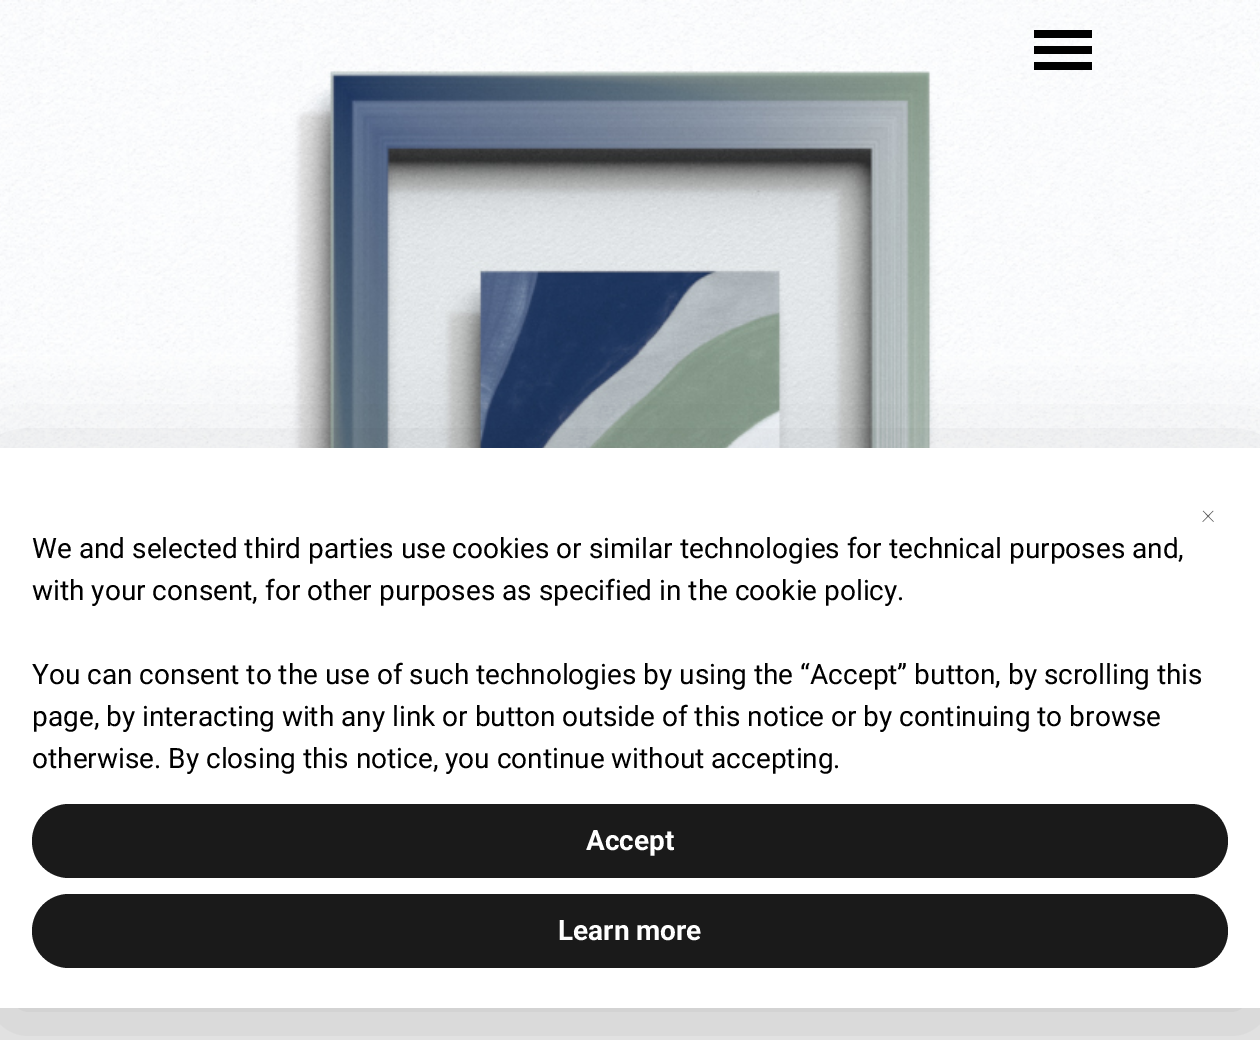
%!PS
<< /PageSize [1260 1040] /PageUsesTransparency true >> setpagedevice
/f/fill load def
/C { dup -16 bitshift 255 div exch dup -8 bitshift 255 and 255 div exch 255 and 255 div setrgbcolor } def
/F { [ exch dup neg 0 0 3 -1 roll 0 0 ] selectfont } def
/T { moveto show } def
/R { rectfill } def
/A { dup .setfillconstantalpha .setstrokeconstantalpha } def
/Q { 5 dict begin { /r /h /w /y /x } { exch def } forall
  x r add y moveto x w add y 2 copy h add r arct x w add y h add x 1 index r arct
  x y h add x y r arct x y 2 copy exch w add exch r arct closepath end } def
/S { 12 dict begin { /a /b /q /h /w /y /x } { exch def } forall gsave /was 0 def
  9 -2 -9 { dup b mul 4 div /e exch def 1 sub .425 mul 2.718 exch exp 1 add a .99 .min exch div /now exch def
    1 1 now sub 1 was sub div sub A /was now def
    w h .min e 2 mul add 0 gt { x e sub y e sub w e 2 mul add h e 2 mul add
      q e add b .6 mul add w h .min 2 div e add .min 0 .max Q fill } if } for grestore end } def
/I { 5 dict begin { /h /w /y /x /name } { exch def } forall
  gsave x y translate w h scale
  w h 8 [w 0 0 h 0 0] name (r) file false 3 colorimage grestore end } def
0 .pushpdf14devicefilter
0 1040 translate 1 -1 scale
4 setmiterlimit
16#ECECEC C
0 0 1260 1040 R
(1.rgb) 0 0 1260 448 I
16#000000 C
1034 30 58 8 R
1034 46 58 8 R
1034 62 58 8 R
0 464 1260 560 0 48 .15 S
16#FFFFFF C
0 448 1260 560 R
/Roboto-Regular 28 F
16#000000 C
(We and selected third parties use cookies or similar technologies for technical purposes and,) 32 558 T
0.7 A
16#FFFFFF C
1176 480 64 64 8 Q f
/Roboto-Thin 28 F
1 A
16#4D4D4D C
(×) 1201 522 T
/Roboto-Regular 28 F
16#000000 C
(with your consent, for other purposes as specified in the cookie policy.) 32 600 T
(You can consent to the use of such technologies by using the “Accept” button, by scrolling this) 32 684 T
(page, by interacting with any link or button outside of this notice or by continuing to browse) 32 726 T
(otherwise. By closing this notice, you continue without accepting.) 32 768 T
16#1A1A1A C
32 804 1196 74 37 Q f
/Roboto-Bold 28 F
16#FFFFFF C
(Accept) 586 850 T
16#1A1A1A C
32 894 1196 74 37 Q f
16#FFFFFF C
(Learn more) 558 940 T
.poppdf14devicefilter showpage
